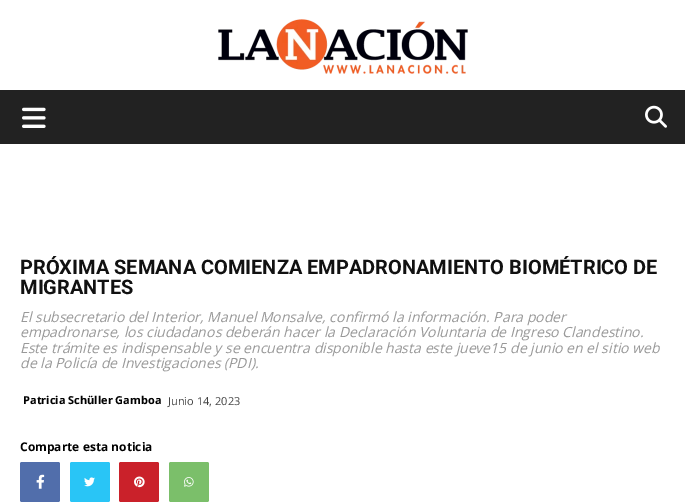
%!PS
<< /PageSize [685 502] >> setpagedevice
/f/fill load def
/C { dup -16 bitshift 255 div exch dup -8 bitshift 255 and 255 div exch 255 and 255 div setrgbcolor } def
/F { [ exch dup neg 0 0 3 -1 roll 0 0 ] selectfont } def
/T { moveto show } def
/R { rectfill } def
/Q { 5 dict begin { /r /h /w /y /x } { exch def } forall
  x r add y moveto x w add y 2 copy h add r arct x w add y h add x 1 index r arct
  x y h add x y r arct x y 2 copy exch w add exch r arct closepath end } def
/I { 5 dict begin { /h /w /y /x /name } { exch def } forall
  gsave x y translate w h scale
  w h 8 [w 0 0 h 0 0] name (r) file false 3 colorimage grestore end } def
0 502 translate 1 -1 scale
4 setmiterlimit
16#FFFFFF C
0 0 685 502 R
(1.rgb) 218 19 250 55 I
16#222222 C
0 90 685 54 R
(2.rgb) 22 107 24 21 I
(3.rgb) 645 105 22 23 I
/Roboto-Bold 20 F
16#111111 C
(PRÓXIMA SEMANA COMIENZA EMPADRONAMIENTO BIOMÉTRICO DE) 20 274 T
(MIGRANTES) 20 294 T
/OpenSans-Italic 14 F
16#999999 C
(El subsecretario del Interior, Manuel Monsalve, confirmó la información. Para poder) 20 322 T
(empadronarse, los ciudadanos deberán hacer la Declaración Voluntaria de Ingreso Clandestino.) 20 337 T
(Este trámite es indispensable y se encuentra disponible hasta este jueve15 de junio en el sitio web) 20 353 T
(de la Policía de Investigaciones \(PDI\).) 20 368 T
/OpenSans-Bold 11 F
16#000000 C
(Patricia Schüller Gamboa) 23 404 T
/OpenSans-Regular 11 F
16#444444 C
(Junio 14, 2023) 168 405 T
/OpenSans-Bold 12 F
16#000000 C
(Comparte esta noticia) 20 451 T
16#516EAB C
20 462 40 40 2 Q f
(4.rgb) 36 474 9 15 I
16#29C5F6 C
70 462 40 40 2 Q f
(5.rgb) 84 477 11 10 I
16#CA212A C
119 462 40 40 2 Q f
(6.rgb) 134 476 11 12 I
16#7BBF6A C
169 462 40 40 2 Q f
(7.rgb) 184 477 10 10 I
showpage
